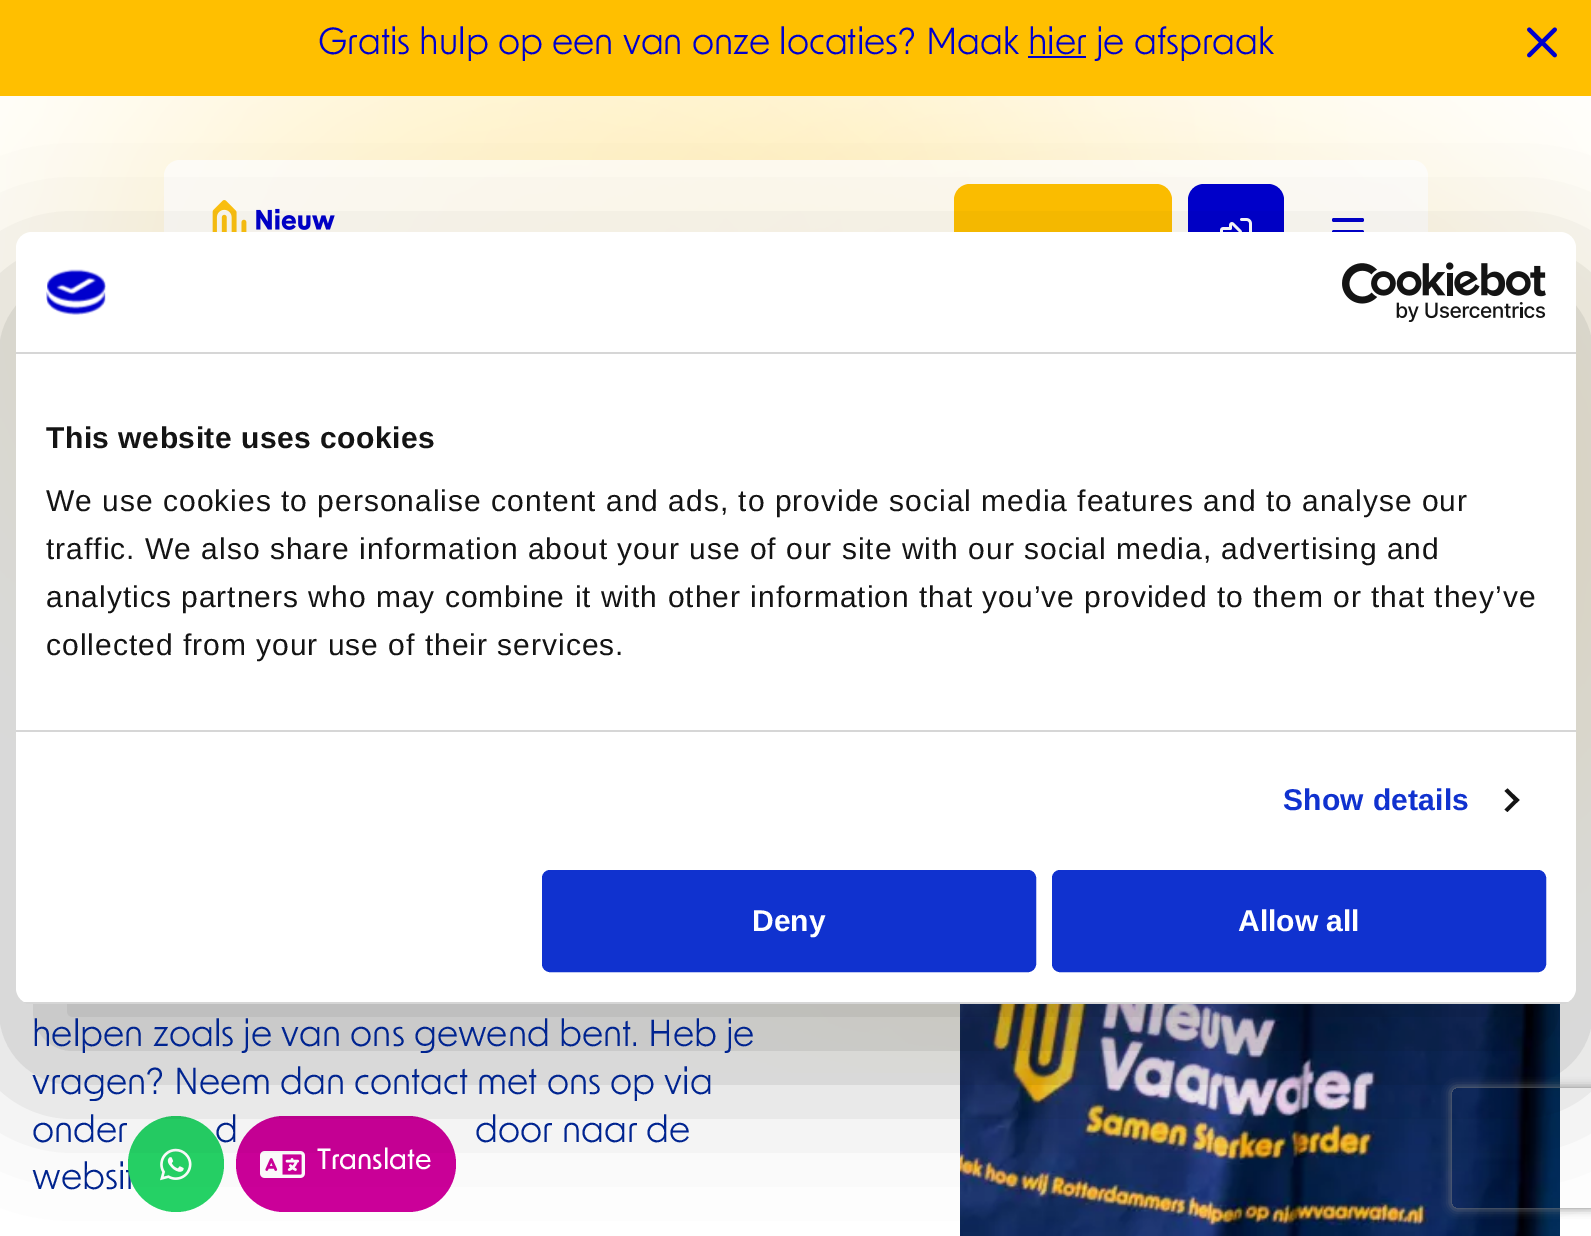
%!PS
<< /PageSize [1591 1236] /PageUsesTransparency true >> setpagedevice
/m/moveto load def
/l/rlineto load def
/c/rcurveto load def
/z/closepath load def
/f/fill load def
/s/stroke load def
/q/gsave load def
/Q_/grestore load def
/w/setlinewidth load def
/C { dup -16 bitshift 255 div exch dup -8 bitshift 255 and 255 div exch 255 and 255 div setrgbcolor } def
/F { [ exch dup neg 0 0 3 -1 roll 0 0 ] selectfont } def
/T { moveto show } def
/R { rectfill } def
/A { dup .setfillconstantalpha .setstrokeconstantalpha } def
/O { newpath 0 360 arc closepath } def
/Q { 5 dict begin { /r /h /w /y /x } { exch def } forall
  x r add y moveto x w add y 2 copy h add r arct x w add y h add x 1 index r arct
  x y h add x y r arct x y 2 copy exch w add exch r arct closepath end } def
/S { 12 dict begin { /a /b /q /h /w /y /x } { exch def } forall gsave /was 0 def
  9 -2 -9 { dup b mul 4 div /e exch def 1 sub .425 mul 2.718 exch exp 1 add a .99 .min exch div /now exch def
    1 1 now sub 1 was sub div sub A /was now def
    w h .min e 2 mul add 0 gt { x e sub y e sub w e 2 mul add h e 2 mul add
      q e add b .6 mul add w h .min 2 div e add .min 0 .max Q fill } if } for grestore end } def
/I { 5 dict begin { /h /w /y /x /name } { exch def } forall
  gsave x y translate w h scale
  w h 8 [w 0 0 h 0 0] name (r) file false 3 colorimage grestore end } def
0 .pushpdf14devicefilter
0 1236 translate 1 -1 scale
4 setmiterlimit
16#FFFFFF C
0 0 1591 1236 R
16#FFBF00 C
0 0 1591 96 R
/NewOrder-Regular 36 F
16#0000CD C
(Gratis hulp op een van onze locaties? Maak hier je afspraak) 318 54 T
1028 56 58 2 R
(1.rgb) 1527 27 30 31 I
(4.rgb) 0 96 1591 977 I
0.75 A
16#FFFFFF C
164 160 1264 144 16 Q f
1 A
(2.rgb) 212 200 123 32 I
16#FFBF00 C
954 184 218 96 16 Q f
16#0000CD C
1188 184 96 96 16 Q f
(3.rgb) 1220 218 32 14 I
1332 218 32 4 2 Q f
1332 230 32 4 2 Q f
(7.rgb) 960 1004 600 232 I
16#002490 C
(d) 215 1142 T
(websit) 32 1189 T
16#25D366 C
176 1164 48 O f
(8.rgb) 160 1148 32 33 I
16#CD009A C
236 1116 220 96 48 Q f
(9.rgb) 260 1151 45 27 I
16#000000 C
16 296 1560 772 16 68 .3 S
16#FFFFFF C
16 232 1560 772 16 Q f
16#D6D6D6 C
16 352 1560 2 R
(5.rgb) 46 269 60 46 I
(6.rgb) 1342 262 204 60 I
16 730 1560 2 R
/LiberationSans-Bold 30 F
16#141414 C
46 448 m .5 0 (This website uses cookies) ashow
/LiberationSans-Regular 30 F
46 511 m 1 0 (We use cookies to personalise content and ads, to provide social media features and to analyse our) ashow
46 559 m 1 0 (traffic. We also share information about your use of our site with our social media, advertising and) ashow
46 607 m 1 0 (analytics partners who may combine it with other information that you’ve provided to them or that they’ve) ashow
46 655 m 1 0 (collected from your use of their services.) ashow
/LiberationSans-Bold 30 F
16#1032CF C
1283 810 m .25 0 (Show details) ashow
16#141414 C
1507.5 788.5 m 12 11.5 l -3 3 l -12 -12 l z f
1516.5 797.5 m 3 2.5 l -12 12 l -3 -2.5 l z f
q
16 232 1560 772 16 Q clip newpath
16#D6D6D6 C
16 1002 1560 2 R
Q_
16#1032CF C
544 872 490 98 6 Q q f Q_
4 w
s
16#FFFFFF C
(Deny) 752 931 T
16#1032CF C
1054 872 490 98 6 Q q f Q_
s
16#FFFFFF C
(Allow all) 1238 931 T
/NewOrder-Regular 36 F
16#002490 C
(helpen zoals je van ons gewend bent. Heb je) 32 1046 T
(vragen? Neem dan contact met ons op via) 32 1094 T
(onder) 32 1142 T
(door naar de) 475 1142 T
q
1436 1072 m 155 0 l 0 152 l -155 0 l z 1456 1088 m 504 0 l 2 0 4 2 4 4 c 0 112 l 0 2 -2 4 -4 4 c -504 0 l -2 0 -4 -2 -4 -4 c 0 -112 l 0 -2 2 -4 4 -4 c z eoclip newpath
16#808080 C
1452 1088 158 120 4 5 1 S
Q_
/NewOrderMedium-Medium 28 F
16#FFFFFF C
(Translate) 317 1169 T
.poppdf14devicefilter showpage
